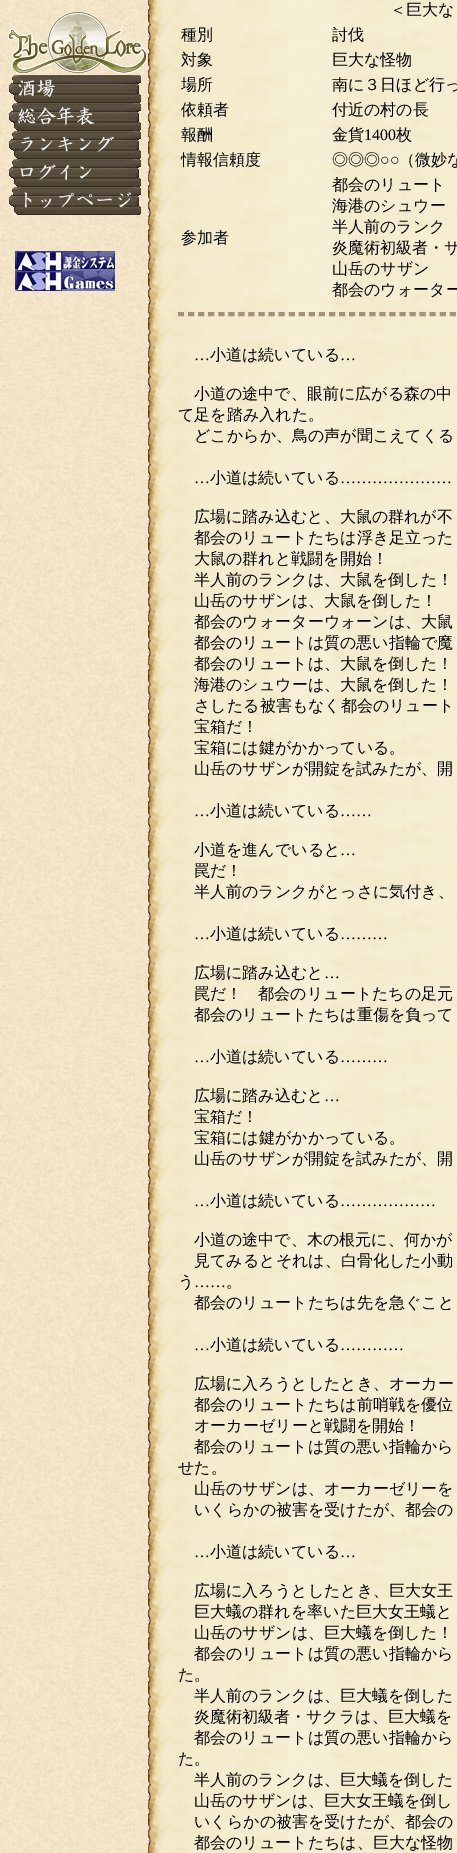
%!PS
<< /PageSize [457 1853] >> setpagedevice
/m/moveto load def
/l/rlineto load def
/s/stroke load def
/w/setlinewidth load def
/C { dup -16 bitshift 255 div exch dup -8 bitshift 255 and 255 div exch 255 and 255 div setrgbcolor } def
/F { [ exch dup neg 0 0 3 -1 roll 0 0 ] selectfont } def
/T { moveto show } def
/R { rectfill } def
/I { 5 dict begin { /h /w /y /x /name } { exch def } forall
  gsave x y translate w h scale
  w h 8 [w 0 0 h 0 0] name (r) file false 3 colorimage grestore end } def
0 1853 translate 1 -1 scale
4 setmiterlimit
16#FFFFFF C
0 0 457 1853 R
(1.rgb) 0 0 149 1853 I
(2.rgb) 8 12 139 62 I
(3.rgb) 9 75 132 28 I
(4.rgb) 9 103 132 28 I
(5.rgb) 9 131 132 28 I
(6.rgb) 9 159 132 28 I
(7.rgb) 9 187 132 28 I
(8.rgb) 15 251 100 20 I
(9.rgb) 15 271 100 20 I
(10.rgb) 148 0 309 1853 I
/WenQuanYiZenHei-Medium 16 F
16#000000 C
(＜巨大な) 390 15 T
(種別) 181 40 T
(討伐) 332 40 T
(対象) 181 65 T
(巨大な怪物) 332 65 T
(場所) 181 90 T
(南に３日ほど行っ) 332 90 T
(依頼者) 181 115 T
(付近の村の長) 332 115 T
(報酬) 181 140 T
(金貨) 332 140 T
/LiberationSerif-Regular 16 F
(1400) 364 140 T
/WenQuanYiZenHei-Medium 16 F
(枚) 396 140 T
(情報信頼度) 181 165 T
(◎◎◎) 332 165 T
/LiberationSerif-Regular 16 F
(○○) 380 165 T
/WenQuanYiZenHei-Medium 16 F
(（微妙な) 399 165 T
(参加者) 181 243 T
(都会のリュート) 332 190 T
(海港のシュウー) 332 211 T
(半人前のランク) 332 232 T
(炎魔術初級者・サ) 332 253 T
(山岳のサザン) 332 274 T
(都会のウォーター) 332 295 T
16#A3917E C
2 w
[6 4.07] 0 setdash
178 313 m 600 0 l s
178 315 m 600 0 l s
/LiberationSerif-Regular 16 F
16#000000 C
(…) 194 360 T
/WenQuanYiZenHei-Medium 16 F
(小道は続いている) 210 360 T
/LiberationSerif-Regular 16 F
(…) 340 360 T
/WenQuanYiZenHei-Medium 16 F
(小道の途中で、眼前に広がる森の中) 194 399 T
(て足を踏み入れた。) 178 420 T
(どこからか、鳥の声が聞こえてくる) 194 441 T
/LiberationSerif-Regular 16 F
(…) 194 483 T
/WenQuanYiZenHei-Medium 16 F
(小道は続いている) 210 483 T
/LiberationSerif-Regular 16 F
(…………………) 340 483 T
/WenQuanYiZenHei-Medium 16 F
(広場に踏み込むと、大鼠の群れが不) 194 522 T
(都会のリュートたちは浮き足立った) 194 543 T
(大鼠の群れと戦闘を開始！) 194 564 T
(半人前のランクは、大鼠を倒した！) 194 585 T
(山岳のサザンは、大鼠を倒した！) 194 606 T
(都会のウォーターウォーンは、大鼠) 194 627 T
(都会のリュートは質の悪い指輪で魔) 194 648 T
(都会のリュートは、大鼠を倒した！) 194 669 T
(海港のシュウーは、大鼠を倒した！) 194 690 T
(さしたる被害もなく都会のリュート) 194 711 T
(宝箱だ！) 194 732 T
(宝箱には鍵がかかっている。) 194 753 T
(山岳のサザンが開錠を試みたが、開) 194 774 T
/LiberationSerif-Regular 16 F
(…) 194 816 T
/WenQuanYiZenHei-Medium 16 F
(小道は続いている) 210 816 T
/LiberationSerif-Regular 16 F
(……) 340 816 T
/WenQuanYiZenHei-Medium 16 F
(小道を進んでいると) 194 855 T
/LiberationSerif-Regular 16 F
(…) 340 855 T
/WenQuanYiZenHei-Medium 16 F
(罠だ！) 194 876 T
(半人前のランクがとっさに気付き、) 194 897 T
/LiberationSerif-Regular 16 F
(…) 194 939 T
/WenQuanYiZenHei-Medium 16 F
(小道は続いている) 210 939 T
/LiberationSerif-Regular 16 F
(………) 340 939 T
/WenQuanYiZenHei-Medium 16 F
(広場に踏み込むと) 194 978 T
/LiberationSerif-Regular 16 F
(…) 324 978 T
/WenQuanYiZenHei-Medium 16 F
(罠だ！　都会のリュートたちの足元) 194 999 T
(都会のリュートたちは重傷を負って) 194 1020 T
/LiberationSerif-Regular 16 F
(…) 194 1062 T
/WenQuanYiZenHei-Medium 16 F
(小道は続いている) 210 1062 T
/LiberationSerif-Regular 16 F
(………) 340 1062 T
/WenQuanYiZenHei-Medium 16 F
(広場に踏み込むと) 194 1101 T
/LiberationSerif-Regular 16 F
(…) 324 1101 T
/WenQuanYiZenHei-Medium 16 F
(宝箱だ！) 194 1122 T
(宝箱には鍵がかかっている。) 194 1143 T
(山岳のサザンが開錠を試みたが、開) 194 1164 T
/LiberationSerif-Regular 16 F
(…) 194 1206 T
/WenQuanYiZenHei-Medium 16 F
(小道は続いている) 210 1206 T
/LiberationSerif-Regular 16 F
(………………) 340 1206 T
/WenQuanYiZenHei-Medium 16 F
(小道の途中で、木の根元に、何かが) 194 1245 T
(見てみるとそれは、白骨化した小動) 194 1266 T
(う) 178 1287 T
/LiberationSerif-Regular 16 F
(……) 194 1287 T
/WenQuanYiZenHei-Medium 16 F
(。) 226 1287 T
(都会のリュートたちは先を急ぐこと) 194 1308 T
/LiberationSerif-Regular 16 F
(…) 194 1350 T
/WenQuanYiZenHei-Medium 16 F
(小道は続いている) 210 1350 T
/LiberationSerif-Regular 16 F
(…………) 340 1350 T
/WenQuanYiZenHei-Medium 16 F
(広場に入ろうとしたとき、オーカー) 194 1389 T
(都会のリュートたちは前哨戦を優位) 194 1410 T
(オーカーゼリーと戦闘を開始！) 194 1431 T
(都会のリュートは質の悪い指輪から) 194 1452 T
(せた。) 178 1473 T
(山岳のサザンは、オーカーゼリーを) 194 1494 T
(いくらかの被害を受けたが、都会の) 194 1515 T
/LiberationSerif-Regular 16 F
(…) 194 1557 T
/WenQuanYiZenHei-Medium 16 F
(小道は続いている) 210 1557 T
/LiberationSerif-Regular 16 F
(…) 340 1557 T
/WenQuanYiZenHei-Medium 16 F
(広場に入ろうとしたとき、巨大女王) 194 1596 T
(巨大蟻の群れを率いた巨大女王蟻と) 194 1617 T
(山岳のサザンは、巨大蟻を倒した！) 194 1638 T
(都会のリュートは質の悪い指輪から) 194 1659 T
(た。) 178 1680 T
(半人前のランクは、巨大蟻を倒した) 194 1701 T
(炎魔術初級者・サクラは、巨大蟻を) 194 1722 T
(都会のリュートは質の悪い指輪から) 194 1743 T
(た。) 178 1764 T
(半人前のランクは、巨大蟻を倒した) 194 1785 T
(山岳のサザンは、巨大女王蟻を倒し) 194 1806 T
(いくらかの被害を受けたが、都会の) 194 1827 T
(都会のリュートたちは、巨大な怪物) 194 1848 T
showpage
